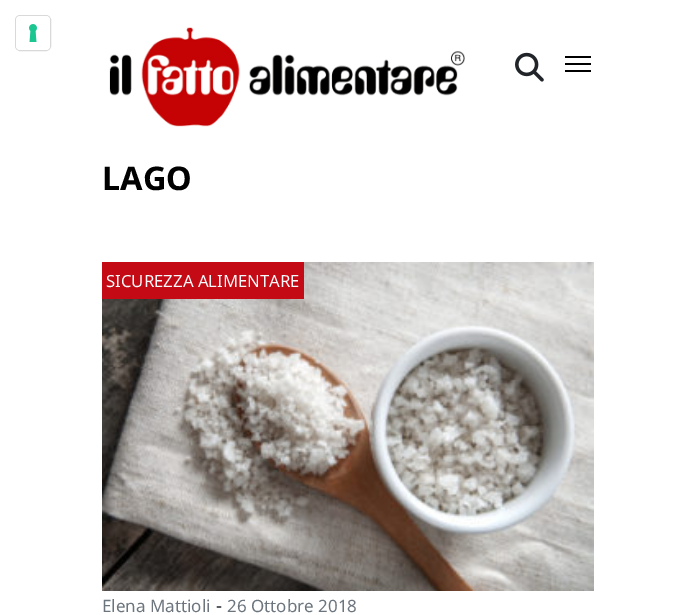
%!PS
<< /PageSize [696 615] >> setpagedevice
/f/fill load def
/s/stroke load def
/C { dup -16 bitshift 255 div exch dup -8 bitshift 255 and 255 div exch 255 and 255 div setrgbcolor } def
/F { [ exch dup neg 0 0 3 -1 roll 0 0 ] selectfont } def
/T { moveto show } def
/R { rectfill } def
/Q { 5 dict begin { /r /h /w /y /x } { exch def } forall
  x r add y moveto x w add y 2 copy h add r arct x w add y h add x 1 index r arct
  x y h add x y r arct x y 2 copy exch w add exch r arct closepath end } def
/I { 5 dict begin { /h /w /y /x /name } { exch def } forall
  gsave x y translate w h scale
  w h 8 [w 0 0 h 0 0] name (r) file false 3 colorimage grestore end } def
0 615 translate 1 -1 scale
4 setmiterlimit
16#FFFFFF C
0 0 696 615 R
16#D9D9D9 C
15.5 15.5 35 35 4.5 Q s
16#FFFFFF C
16 16 34 34 4 Q f
(1.rgb) 29 24 8 18 I
(2.rgb) 109 27 356 100 I
(3.rgb) 515 52 29 30 I
16#000000 C
565 56 26 2 R
565 63 26 2 R
565 70 26 2 R
/NotoSans-Bold 32.5 F
(LAGO) 102 190 T
(4.rgb) 102 262 492 329 I
16#C30A15 C
102 262 202 37 R
/NotoSans-Regular 16.75 F
16#F8F9FA C
(SICUREZZA ALIMENTARE) 106 287 T
/NotoSans-Regular 17 F
16#6C757D C
(Elena Mattioli) 102 612 T
/NotoSans-Regular 19 F
16#212529 C
(-) 216 612 T
/NotoSans-Regular 17 F
16#6C757D C
(26 Ottobre 2018) 227 612 T
showpage
